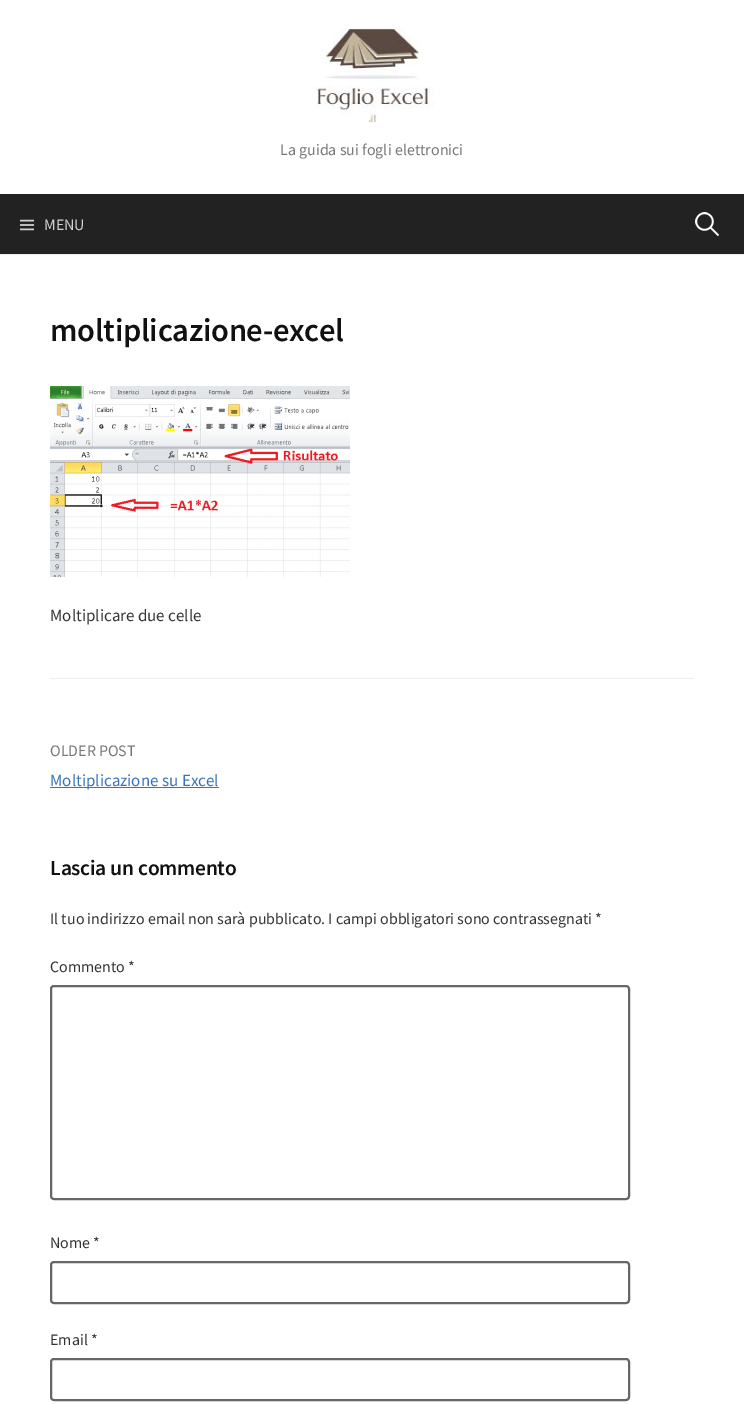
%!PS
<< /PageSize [744 1405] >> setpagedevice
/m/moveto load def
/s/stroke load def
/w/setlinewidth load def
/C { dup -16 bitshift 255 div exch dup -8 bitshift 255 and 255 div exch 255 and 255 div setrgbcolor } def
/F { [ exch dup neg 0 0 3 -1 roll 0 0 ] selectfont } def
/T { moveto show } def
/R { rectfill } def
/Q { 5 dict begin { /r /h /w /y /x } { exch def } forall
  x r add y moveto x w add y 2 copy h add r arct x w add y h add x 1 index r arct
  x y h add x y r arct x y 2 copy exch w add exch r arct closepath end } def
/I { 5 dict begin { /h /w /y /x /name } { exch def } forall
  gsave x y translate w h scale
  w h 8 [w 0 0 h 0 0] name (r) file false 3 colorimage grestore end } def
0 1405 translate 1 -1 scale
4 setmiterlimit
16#FFFFFF C
0 0 744 1405 R
16#EEEEEE C
0 254 744 1 R
(1.rgb) 312 28 122 95 I
/SourceSansPro-Regular 15.95 F
16#777777 C
(La guida sui fogli elettronici) 280 155 T
16#222222 C
0 194 744 60 R
(2.rgb) 20 219 14 12 I
16#D3D3D3 C
(MENU) 44 230 T
(3.rgb) 695 212 24 24 I
16#EEEEEE C
50 678 644 1 R
/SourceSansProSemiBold-SemiBold 32.5 F
16#111111 C
50 341 m -.3 0 (moltiplicazione-excel) ashow
(4.rgb) 50 386 300 191 I
/SourceSansPro-Regular 17 F
16#333333 C
(Moltiplicare due celle) 50 621 T
/SourceSansPro-Regular 15.95 F
16#777777 C
(OLDER POST) 50 756 T
16#3872B8 C
50 787 169 1 R
/SourceSansPro-Regular 17 F
(Moltiplicazione su Excel) 50 786 T
/SourceSansProSemiBold-SemiBold 21.5 F
16#111111 C
50 875 m -.25 0 (Lascia un commento) ashow
/SourceSansPro-Regular 15.95 F
16#333333 C
(Il tuo indirizzo email non sarà pubblicato. I campi obbligatori sono contrassegnati *) 50 924 T
(Commento *) 50 972 T
16#666666 C
2 w
51 986 578 213 3 Q s
16#333333 C
(Nome *) 50 1248 T
16#666666 C
51 1262 578 41 3 Q s
16#333333 C
(Email *) 50 1345 T
16#666666 C
51 1359 578 41 3 Q s
showpage
